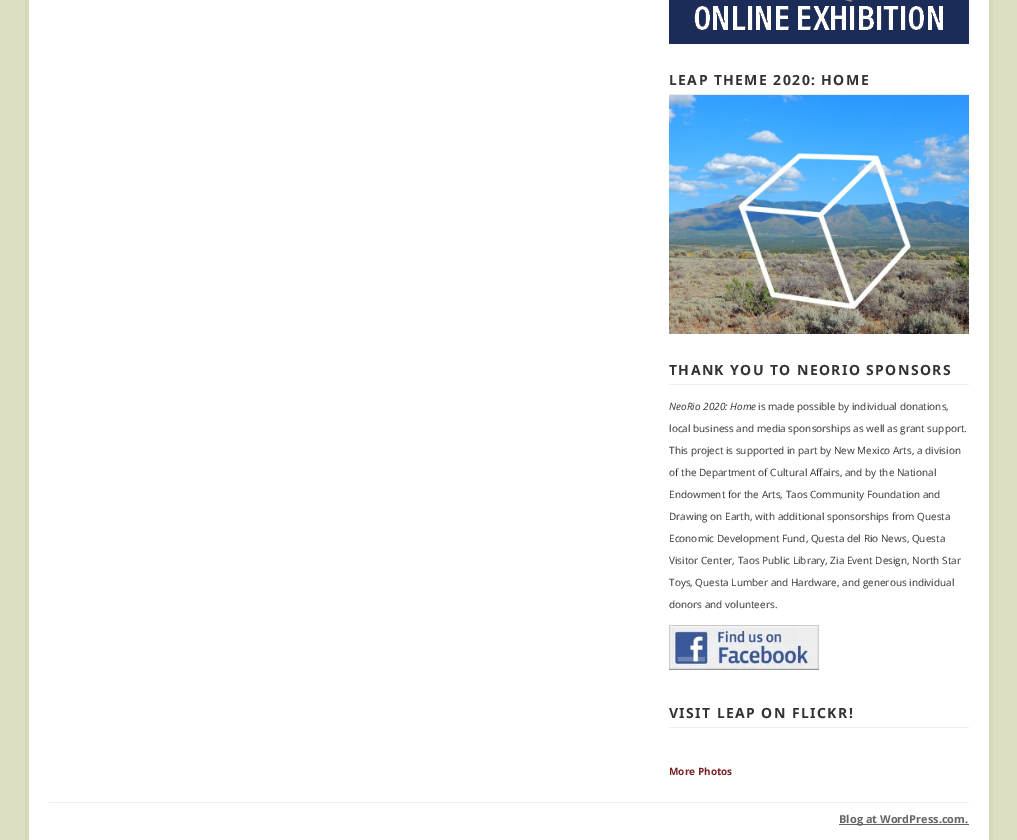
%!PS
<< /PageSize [1017 840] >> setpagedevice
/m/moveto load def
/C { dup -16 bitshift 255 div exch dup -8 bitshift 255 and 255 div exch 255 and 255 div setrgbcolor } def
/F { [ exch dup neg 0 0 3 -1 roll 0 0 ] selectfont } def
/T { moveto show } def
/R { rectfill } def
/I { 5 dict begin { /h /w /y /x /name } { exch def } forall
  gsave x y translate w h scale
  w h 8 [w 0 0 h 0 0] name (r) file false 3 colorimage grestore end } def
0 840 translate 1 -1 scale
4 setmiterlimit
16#DCDFC2 C
0 0 1017 840 R
16#FFFFFF C
29 0 960 840 R
16#D7DAB9 C
989 0 4 840 R
25 0 4 840 R
(1.rgb) 669 0 300 44 I
16#EEEEEE C
669 94 300 1 R
/NotoSans-Bold 14 F
16#333333 C
669 85 m 1.4 0 (LEAP THEME 2020: HOME) ashow
(2.rgb) 669 95 300 239 I
16#EEEEEE C
669 384 300 1 R
16#333333 C
669 375 m 1.4 0 (THANK YOU TO NEORIO SPONSORS) ashow
/OpenSans-Italic 10 F
(NeoRio 2020: Home) 669 410 T
/OpenSans-Regular 10 F
(is made possible by individual donations,) 758 410 T
(local business and media sponsorships as well as grant support.) 669 432 T
(This project is supported in part by New Mexico Arts, a division) 669 454 T
(of the Department of Cultural Affairs, and by the National) 669 476 T
(Endowment for the Arts, Taos Community Foundation and) 669 498 T
(Drawing on Earth, with additional sponsorships from Questa) 669 520 T
(Economic Development Fund, Questa del Rio News, Questa) 669 542 T
(Visitor Center, Taos Public Library, Zia Event Design, North Star) 669 564 T
(Toys, Questa Lumber and Hardware, and generous individual) 669 586 T
(donors and volunteers.) 669 608 T
(3.rgb) 669 625 150 45 I
16#EEEEEE C
669 727 300 1 R
/NotoSans-Bold 14 F
16#333333 C
669 718 m 1.4 0 (VISIT LEAP ON FLICKR!) ashow
/OpenSans-Bold 10 F
16#772125 C
(More Photos) 669 775 T
16#EEEEEE C
49 802 920 1 R
16#666666 C
839 824 130 1 R
/OpenSans-Bold 11 F
(Blog at WordPress.com.) 839 823 T
showpage
